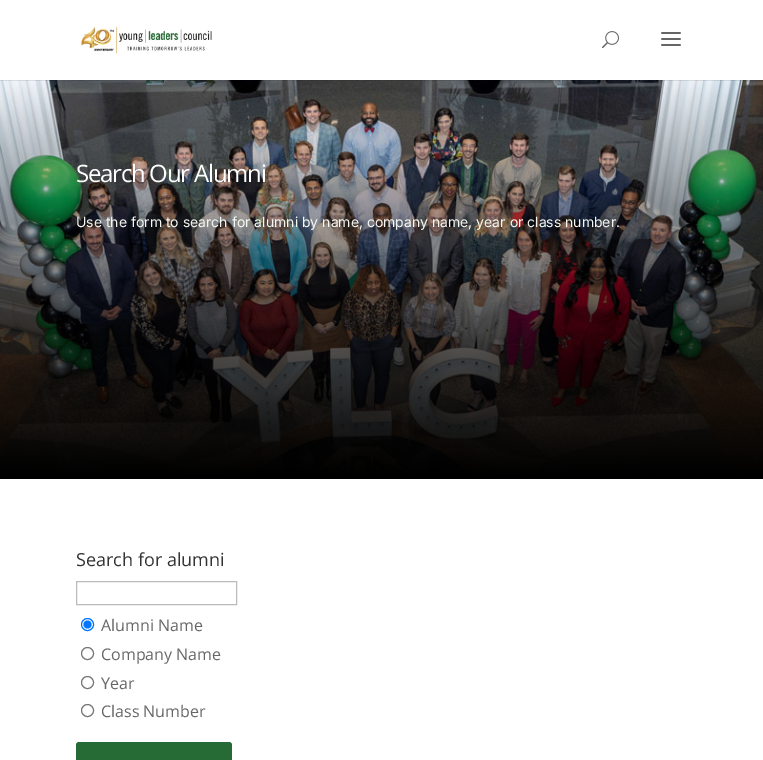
%!PS
<< /PageSize [763 760] /PageUsesTransparency true >> setpagedevice
/m/moveto load def
/f/fill load def
/s/stroke load def
/C { dup -16 bitshift 255 div exch dup -8 bitshift 255 and 255 div exch 255 and 255 div setrgbcolor } def
/F { [ exch dup neg 0 0 3 -1 roll 0 0 ] selectfont } def
/T { moveto show } def
/R { rectfill } def
/A { dup .setfillconstantalpha .setstrokeconstantalpha } def
/O { newpath 0 360 arc closepath } def
/Q { 5 dict begin { /r /h /w /y /x } { exch def } forall
  x r add y moveto x w add y 2 copy h add r arct x w add y h add x 1 index r arct
  x y h add x y r arct x y 2 copy exch w add exch r arct closepath end } def
/I { 5 dict begin { /h /w /y /x /name } { exch def } forall
  gsave x y translate w h scale
  w h 8 [w 0 0 h 0 0] name (r) file false 3 colorimage grestore end } def
0 .pushpdf14devicefilter
0 760 translate 1 -1 scale
4 setmiterlimit
16#FFFFFF C
0 0 763 760 R
(4.rgb) 0 80 763 399 I
0.1 A
16#000000 C
0 80 763 1 R
1 A
(1.rgb) 81 26 131 28 I
(2.rgb) 602 31 17 18 I
(3.rgb) 661 32 20 14 I
/OpenSans-Regular 24 F
16#FFFFFF C
76 182 m -1.25 0 (Search Our Alumni) ashow
/Inter-Regular 14 F
16#F4F8F1 C
(Use the form to search for alumni by name, company name, year or class number.) 76 227 T
/OpenSans-Regular 18 F
16#333333 C
(Search for alumni) 76 566 T
16#BBBBBB C
76.5 581.5 160 23 rectstroke
16#0075FF C
87.5 624.5 6 O s
87.5 624.5 4 O f
/OpenSans-Regular 16 F
16#666666 C
(Alumni Name) 101 631 T
16#767676 C
87.5 653.5 6 O s
16#666666 C
(Company Name) 101 660 T
16#767676 C
87.5 682.5 6 O s
16#666666 C
(Year) 101 689 T
16#767676 C
87.5 710.5 6 O s
16#666666 C
(Class Number) 101 717 T
16#266B35 C
76 742 156 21 3 Q f
.poppdf14devicefilter showpage
